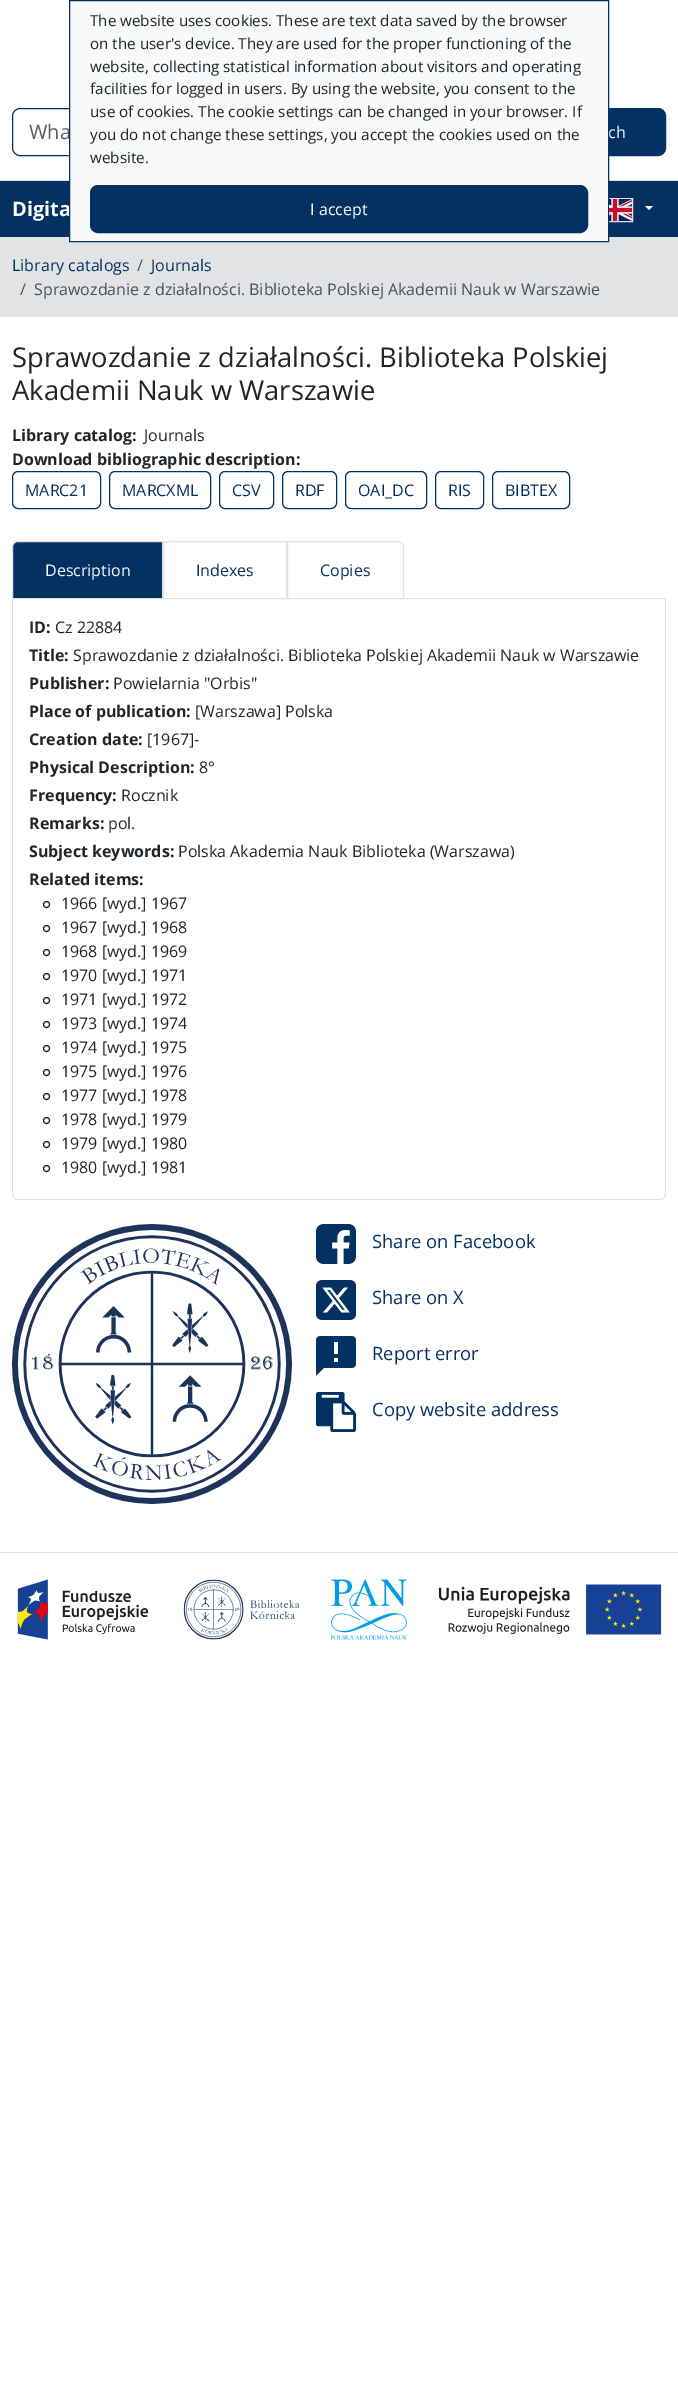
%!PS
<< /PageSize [678 2389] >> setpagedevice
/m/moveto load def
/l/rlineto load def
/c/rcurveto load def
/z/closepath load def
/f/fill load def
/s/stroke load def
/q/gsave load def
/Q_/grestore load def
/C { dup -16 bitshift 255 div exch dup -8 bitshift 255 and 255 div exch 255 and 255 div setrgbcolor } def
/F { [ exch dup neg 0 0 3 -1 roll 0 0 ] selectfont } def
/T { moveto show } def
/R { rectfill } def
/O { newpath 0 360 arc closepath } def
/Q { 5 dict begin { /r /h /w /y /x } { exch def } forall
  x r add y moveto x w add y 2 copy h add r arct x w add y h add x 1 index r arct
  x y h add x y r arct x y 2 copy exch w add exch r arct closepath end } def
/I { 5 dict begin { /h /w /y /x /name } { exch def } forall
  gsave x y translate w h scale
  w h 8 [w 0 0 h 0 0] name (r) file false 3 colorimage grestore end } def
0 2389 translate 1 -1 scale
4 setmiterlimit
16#FFFFFF C
0 0 678 2389 R
16#DEE2E6 C
0 180 678 1 R
16#033161 C
20 108.5 m 463.5 0 l 0 47 l -463.5 0 l -4 0 -7.5 -3.5 -7.5 -7.5 c 0 -32 l 0 -4 3.5 -7.5 7.5 -7.5 c z s
/OpenSans-Regular 20 F
16#595C5F C
(Wha) 29 139 T
16#033161 C
533.5 108.5 132 47 7.5 Q q f Q_
s
/OpenSans-Regular 16 F
16#FFFFFF C
(ch) 608 138 T
16#033161 C
0 181 678 56 R
/OpenSans-Bold 20 F
16#FFFFFF C
(Digita) 12 216 T
16#DEE2E6 C
597.5 198.5 35 23 rectstroke
16#E2E3E5 C
0 237 678 80 R
16#F8F9FA C
69.5 .5 m 539 0 l 0 241 l -539 0 l z q f Q_
16#033161 C
s
/OpenSans-Regular 15.2 F
16#212529 C
(The website uses cookies. These are text data saved by the browser) 90 26 T
(on the user's device. They are used for the proper functioning of the) 90 49 T
(website, collecting statistical information about visitors and operating) 90 72 T
(facilities for logged in users. By using the website, you consent to the) 90 94 T
(use of cookies. The cookie settings can be changed in your browser. If) 90 117 T
(you do not change these settings, you accept the cookies used on the) 90 140 T
(website.) 90 163 T
16#033161 C
90.5 185.5 497 47 7.5 Q q f Q_
s
/OpenSans-Regular 16 F
16#FFFFFF C
(I accept) 310 215 T
(1.rgb) 609 199 23 22 I
645 206 m 8 0 l -4 4 l z f
16#033161 C
(Library catalogs) 12 271 T
16#495057 C
(/) 137 271 T
16#033161 C
(Journals) 151 271 T
16#495057 C
(/) 20 295 T
(Sprawozdanie z działalności. Biblioteka Polskiej Akademii Nauk w Warszawie) 34 295 T
/OpenSans-Regular 27.3 F
16#212529 C
(Sprawozdanie z działalności. Biblioteka Polskiej) 12 367 T
(Akademii Nauk w Warszawie) 12 400 T
/OpenSans-Bold 16 F
(Library catalog:) 12 441 T
/OpenSans-Regular 16 F
(Journals) 144 441 T
/OpenSans-Bold 16 F
(Download bibliographic description:) 12 465 T
16#033161 C
12.5 471.5 88 37 5.5 Q s
/OpenSans-Regular 16 F
(MARC21) 25 496 T
109.5 471.5 101 37 5.5 Q s
(MARCXML) 122 496 T
219.5 471.5 54 37 5.5 Q s
(CSV) 232 496 T
282.5 471.5 54 37 5.5 Q s
(RDF) 295 496 T
345.5 471.5 81 37 5.5 Q s
(OAI_DC) 358 496 T
435.5 471.5 48 37 5.5 Q s
(RIS) 448 496 T
492.5 471.5 77 37 5.5 Q s
(BIBTEX) 505 496 T
16#DEE2E6 C
404 598 262 1 R
16#033161 C
18 541.5 m 144.5 0 l 0 57 l -150 0 l 0 -51.5 l 0 -3 2.5 -5.5 5.5 -5.5 c z q f Q_
16#DEE2E6 C
s
16#FFFFFF C
(Description) 45 576 T
16#DEE2E6 C
163.5 541.5 123 57 rectstroke
16#033161 C
(Indexes) 196 576 T
16#DEE2E6 C
287.5 541.5 m 110.5 0 l 3 0 5.5 2.5 5.5 5.5 c 0 51.5 l -116 0 l z s
16#033161 C
(Copies) 320 576 T
16#DEE2E6 C
12 599 m 654 0 l 0 595 l 0 3 -3 6 -6 6 c -642 0 l -3 0 -6 -3 -6 -6 c z 13 599 m 652 0 l 0 595 l 0 3 -2 5 -5 5 c -642 0 l -3 0 -5 -2 -5 -5 c z eofill
/OpenSans-Bold 16 F
16#212529 C
(ID:) 29 633 T
/OpenSans-Regular 16 F
(Cz 22884) 55 633 T
/OpenSans-Bold 16 F
(Title:) 29 661 T
/OpenSans-Regular 16 F
(Sprawozdanie z działalności. Biblioteka Polskiej Akademii Nauk w Warszawie) 73 661 T
/OpenSans-Bold 16 F
(Publisher:) 29 689 T
/OpenSans-Regular 16 F
(Powielarnia "Orbis") 113 689 T
/OpenSans-Bold 16 F
(Place of publication:) 29 717 T
/OpenSans-Regular 16 F
([Warszawa] Polska) 195 717 T
/OpenSans-Bold 16 F
(Creation date:) 29 745 T
/OpenSans-Regular 16 F
([1967]-) 147 745 T
/OpenSans-Bold 16 F
(Physical Description:) 29 773 T
/OpenSans-Regular 16 F
(8°) 199 773 T
/OpenSans-Bold 16 F
(Frequency:) 29 801 T
/OpenSans-Regular 16 F
(Rocznik) 121 801 T
/OpenSans-Bold 16 F
(Remarks:) 29 829 T
/OpenSans-Regular 16 F
(pol.) 108 829 T
/OpenSans-Bold 16 F
(Subject keywords:) 29 857 T
/OpenSans-Regular 16 F
(Polska Akademia Nauk Biblioteka \(Warszawa\)) 178 857 T
/OpenSans-Bold 16 F
(Related items:) 29 885 T
46.5 904.5 3 O s
/OpenSans-Regular 16 F
(1966 [wyd.] 1967) 61 909 T
46.5 928.5 3 O s
(1967 [wyd.] 1968) 61 933 T
46.5 952.5 3 O s
(1968 [wyd.] 1969) 61 957 T
46.5 976.5 3 O s
(1970 [wyd.] 1971) 61 981 T
46.5 1000.5 3 O s
(1971 [wyd.] 1972) 61 1005 T
46.5 1024.5 3 O s
(1973 [wyd.] 1974) 61 1029 T
46.5 1048.5 3 O s
(1974 [wyd.] 1975) 61 1053 T
46.5 1072.5 3 O s
(1975 [wyd.] 1976) 61 1077 T
46.5 1096.5 3 O s
(1977 [wyd.] 1978) 61 1101 T
46.5 1120.5 3 O s
(1978 [wyd.] 1979) 61 1125 T
46.5 1144.5 3 O s
(1979 [wyd.] 1980) 61 1149 T
46.5 1168.5 3 O s
(1980 [wyd.] 1981) 61 1173 T
(2.rgb) 12 1224 280 280 I
(3.rgb) 316 1224 40 40 I
/OpenSans-Regular 18.4 F
16#033161 C
(Share on Facebook) 372 1248 T
(4.rgb) 316 1280 40 40 I
(Share on X) 372 1304 T
(5.rgb) 316 1336 40 40 I
(Report error) 372 1360 T
(6.rgb) 316 1392 40 40 I
(Copy website address) 372 1416 T
16#DEE2E6 C
0 1552 678 1 R
(7.rgb) 17 1579 132 61 I
(8.rgb) 183 1579 117 61 I
(9.rgb) 330 1579 77 61 I
(10.rgb) 438 1584 224 51 I
showpage
